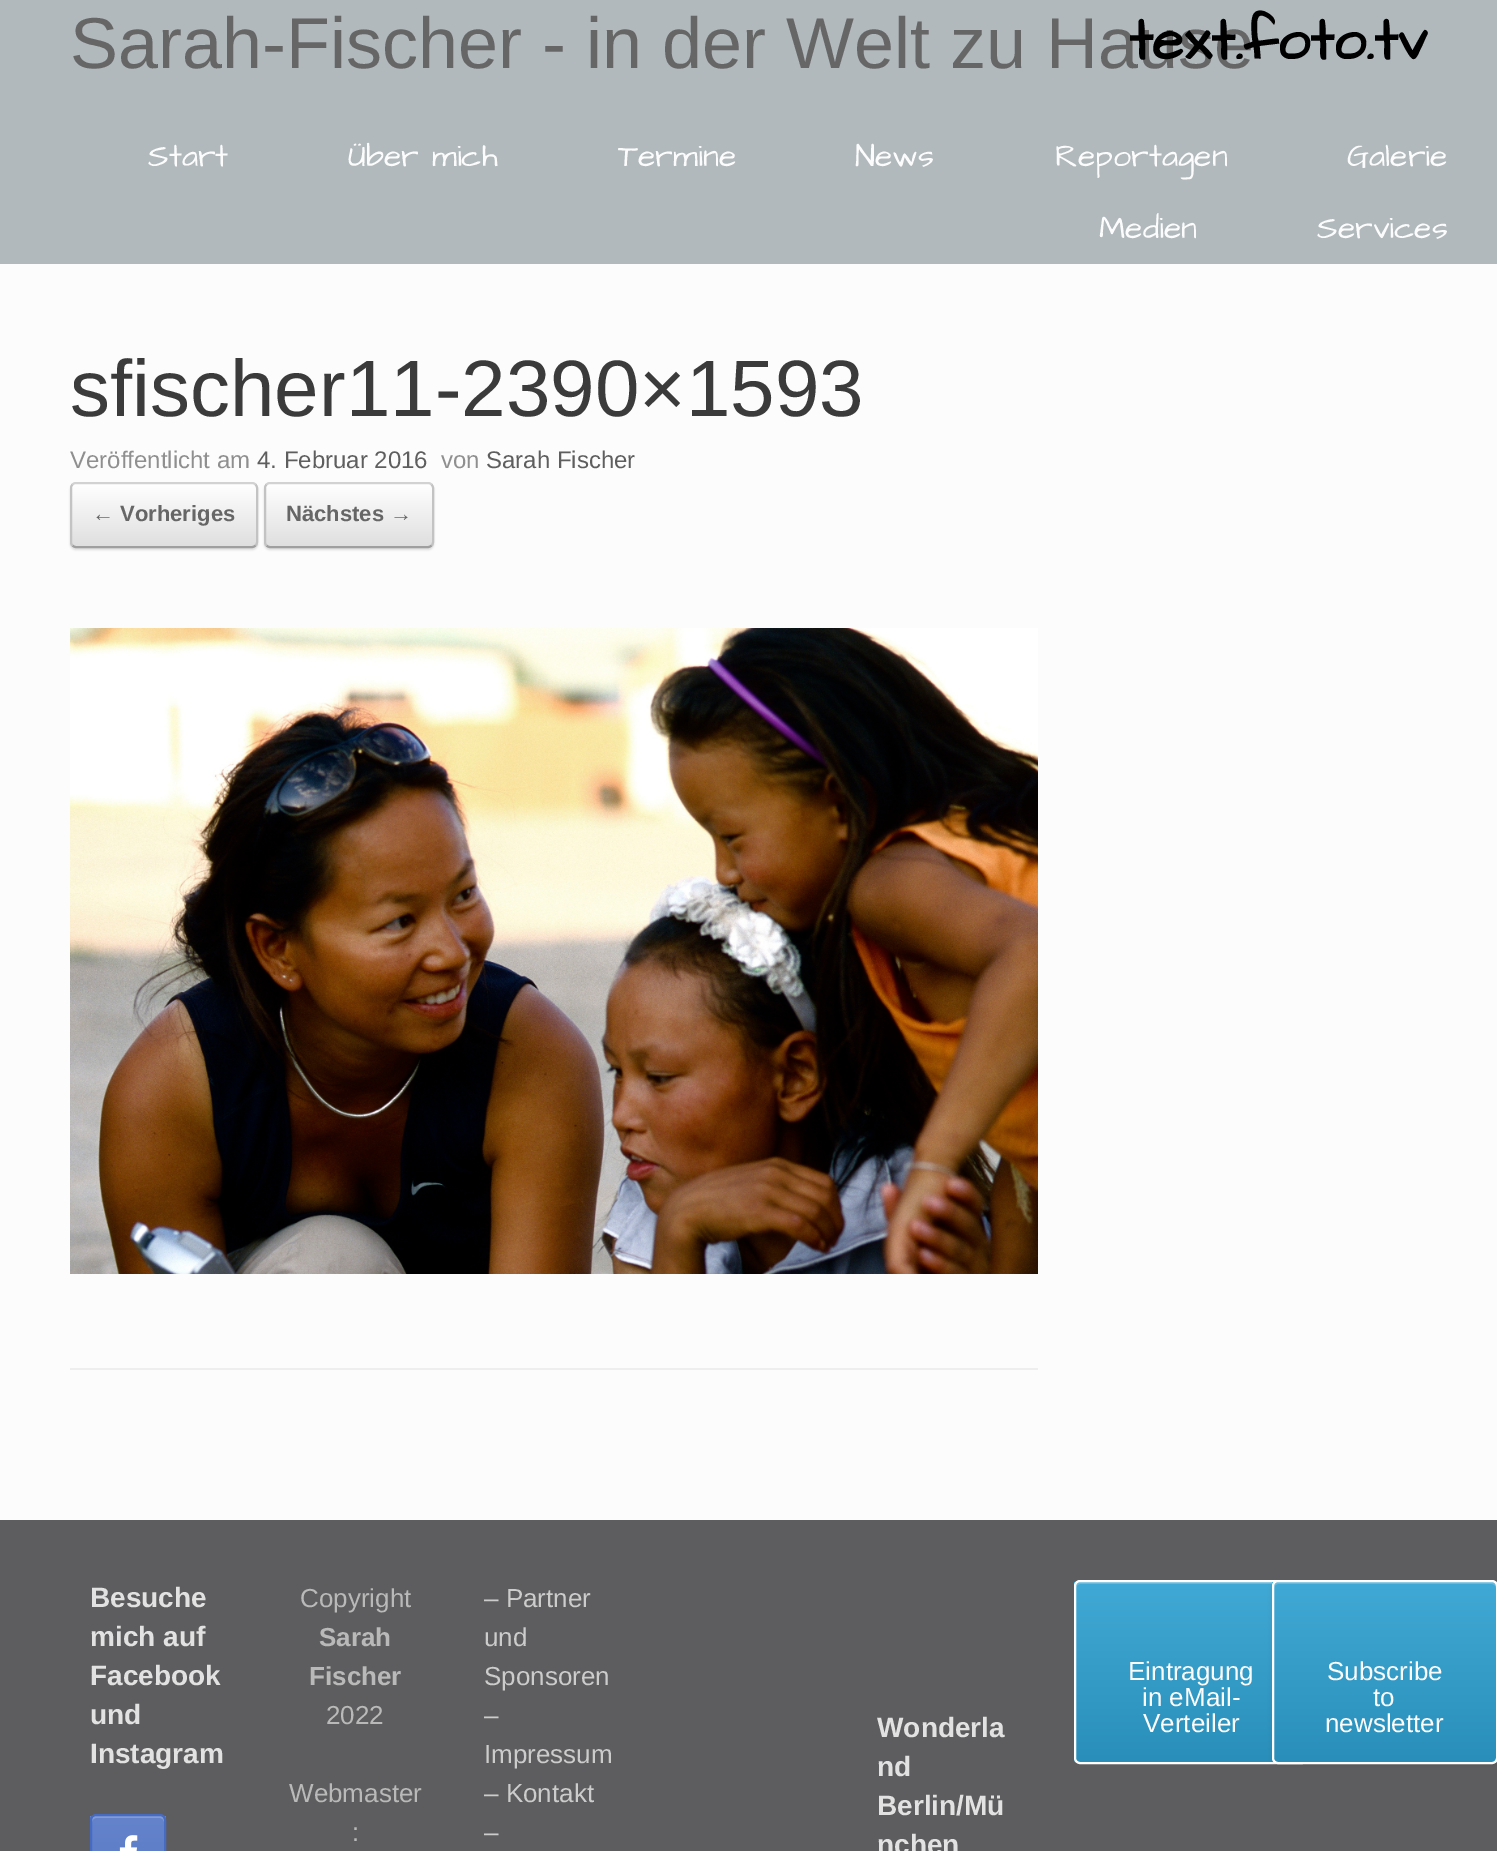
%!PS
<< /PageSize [1497 1851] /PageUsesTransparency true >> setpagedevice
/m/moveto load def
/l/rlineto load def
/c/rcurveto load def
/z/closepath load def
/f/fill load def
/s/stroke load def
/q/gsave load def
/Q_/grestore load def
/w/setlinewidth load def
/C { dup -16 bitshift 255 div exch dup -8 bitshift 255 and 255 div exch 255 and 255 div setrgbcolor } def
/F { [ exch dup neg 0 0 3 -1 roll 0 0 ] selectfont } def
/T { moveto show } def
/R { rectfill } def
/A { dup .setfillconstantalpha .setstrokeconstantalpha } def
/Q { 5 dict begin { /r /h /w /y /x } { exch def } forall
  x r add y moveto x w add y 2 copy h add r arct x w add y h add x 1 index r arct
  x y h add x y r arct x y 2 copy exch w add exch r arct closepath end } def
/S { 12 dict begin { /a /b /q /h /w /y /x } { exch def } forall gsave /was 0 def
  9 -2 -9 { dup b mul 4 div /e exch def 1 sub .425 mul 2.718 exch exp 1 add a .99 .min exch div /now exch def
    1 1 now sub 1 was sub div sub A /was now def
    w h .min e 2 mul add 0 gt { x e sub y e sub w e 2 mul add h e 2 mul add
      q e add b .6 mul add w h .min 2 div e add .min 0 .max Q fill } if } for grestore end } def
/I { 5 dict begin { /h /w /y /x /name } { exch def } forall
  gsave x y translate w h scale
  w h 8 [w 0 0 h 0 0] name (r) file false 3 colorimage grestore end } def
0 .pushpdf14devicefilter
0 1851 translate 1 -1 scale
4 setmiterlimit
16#5D5C5E C
0 0 1497 1851 R
16#B1B9BC C
0 0 1497 264 R
/LiberationSans-Regular 72 F
16#666666 C
(Sarah-Fischer - in der Welt zu Hause) 70 68 T
/ArchitectsDaughter-Bold 58 F
16#000000 C
(text.foto.tv) 1129 59 T
/ArchitectsDaughter-Regular 32 F
16#FCFCFC C
(Start) 148 166 T
(Über mich) 348 166 T
(Termine) 618 166 T
(News) 855 166 T
(Reportagen) 1055 166 T
(Galerie) 1347 166 T
(Medien) 1099 238 T
(Services) 1317 238 T
0 264 1497 1256 R
16#EEEEEE C
70 1368 968 2 R
/LiberationSans-Regular 80 F
16#3B3B3B C
(sfischer11-2390×1593) 70 416 T
/LiberationSans-Regular 24 F
16#8F8F8F C
(Veröffentlicht am) 70 468 T
16#5E5E5E C
(4. Februar 2016) 257 468 T
16#8F8F8F C
(von) 441 468 T
16#5E5E5E C
(Sarah Fischer) 486 468 T
16#000000 C
70 484 188 66 6 1 .12 S
q
70 482 188 66 6 Q clip newpath
q 70 484 m 188 0 l 0 62 l -188 0 l z clip newpath
<< /ShadingType 2 /ColorSpace /DeviceRGB /Coords [72 546 72 484] /Extend [true true] /Function << /FunctionType 2 /Domain [0 1] /C0 [.875 .875 .875] /C1 [1 1 1] /N 1 >> >> shfill Q_
Q_
16#D2D2D2 C
2 w
72.5 484.5 m 1 -1 2 -1.5 3.5 -1.5 c 176 0 l 1.5 0 2.5 .5 3.5 1.5 c s
16#C3C3C3 C
255.5 484.5 m 1 1 1.5 2 1.5 3.5 c 0 54 l 0 1.5 -.5 2.5 -1.5 3.5 c s
16#9F9F9F C
255.5 545.5 m -1 1 -2 1.5 -3.5 1.5 c -176 0 l -1.5 0 -2.5 -.5 -3.5 -1.5 c s
16#C3C3C3 C
72.5 545.5 m -1 -1 -1.5 -2 -1.5 -3.5 c 0 -54 l 0 -1.5 .5 -2.5 1.5 -3.5 c s
/LiberationSans-Bold 22 F
16#666666 C
(← Vorheriges) 92 521 T
16#000000 C
264 484 170 66 6 1 .12 S
q
264 482 170 66 6 Q clip newpath
q 264 484 m 170 0 l 0 62 l -170 0 l z clip newpath
<< /ShadingType 2 /ColorSpace /DeviceRGB /Coords [266 546 266 484] /Extend [true true] /Function << /FunctionType 2 /Domain [0 1] /C0 [.875 .875 .875] /C1 [1 1 1] /N 1 >> >> shfill Q_
Q_
16#D2D2D2 C
266.5 484.5 m 1 -1 2 -1.5 3.5 -1.5 c 158 0 l 1.5 0 2.5 .5 3.5 1.5 c s
16#C3C3C3 C
431.5 484.5 m 1 1 1.5 2 1.5 3.5 c 0 54 l 0 1.5 -.5 2.5 -1.5 3.5 c s
16#9F9F9F C
431.5 545.5 m -1 1 -2 1.5 -3.5 1.5 c -158 0 l -1.5 0 -2.5 -.5 -3.5 -1.5 c s
16#C3C3C3 C
266.5 545.5 m -1 -1 -1.5 -2 -1.5 -3.5 c 0 -54 l 0 -1.5 .5 -2.5 1.5 -3.5 c s
16#666666 C
(Nächstes →) 286 521 T
(1.rgb) 70 628 968 646 I
/LiberationSans-Bold 28 F
16#E2E2E2 C
(Besuche) 90 1607 T
(mich auf) 90 1646 T
(Facebook) 90 1685 T
(und) 90 1724 T
(Instagram) 90 1763 T
q
90 1814 76 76 6 Q clip newpath
q 90 1816 m 76 0 l 0 35 l -76 0 l z clip newpath
<< /ShadingType 2 /ColorSpace /DeviceRGB /Coords [92 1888 92 1816] /Extend [true true] /Function << /FunctionType 2 /Domain [0 1] /C0 [.349 .478 .78] /C1 [.392 .514 .796] /N 1 >> >> shfill Q_
Q_
16#839CD5 C
96 1818 m 64 0 l 2 0 4 2 4 4 c 0 -9 -7 -6 -15 -6 c -42 0 l -8 0 -15 -3 -15 6 c 0 -2 2 -4 4 -4 c z f
16#466BC1 C
91 1815 74 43 5 Q s
(2.rgb) 119 1835 19 16 I
/LiberationSans-Regular 26 F
16#B9B9B9 C
(Copyright) 300 1607 T
/LiberationSans-Bold 26 F
(Sarah) 319 1646 T
(Fischer) 309 1685 T
/LiberationSans-Regular 26 F
(2022) 326 1724 T
(Webmaster) 289 1802 T
(:) 352 1841 T
16#CCCCCC C
(– Partner) 484 1607 T
(und) 484 1646 T
(Sponsoren) 484 1685 T
(–) 484 1724 T
(Impressum) 484 1763 T
(– Kontakt) 484 1802 T
(–) 484 1841 T
q
1074 1580 234 184 6 Q clip newpath
q 1074 1582 m 200 0 l 0 180 l -200 0 l z clip newpath
<< /ShadingType 2 /ColorSpace /DeviceRGB /Coords [1076 1762 1076 1582] /Extend [true true] /Function << /FunctionType 2 /Domain [0 1] /C0 [.161 .561 .729] /C1 [.255 .663 .835] /N 1 >> >> shfill Q_
Q_
16#67BADD C
1080 1584 m 222 0 l 2 0 4 2 4 4 c 0 -3 0 -6 -4 -6 c -222 0 l -4 0 -4 3 -4 6 c 0 -2 2 -4 4 -4 c z f
16#FFFFFF C
1075 1581 232 182 5 Q s
16#FCFCFC C
(Eintragung) 1128 1680 T
(in eMail-) 1142 1706 T
(Verteiler) 1143 1732 T
16#000000 C
1272 1582 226 184 6 2 .07 S
q
1272 1580 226 184 6 Q clip newpath
q 1272 1582 m 225 0 l 0 180 l -225 0 l z clip newpath
<< /ShadingType 2 /ColorSpace /DeviceRGB /Coords [1274 1762 1274 1582] /Extend [true true] /Function << /FunctionType 2 /Domain [0 1] /C0 [.161 .561 .729] /C1 [.255 .663 .835] /N 1 >> >> shfill Q_
Q_
16#67BADD C
1278 1584 m 214 0 l 2 0 4 2 4 4 c 0 -3 0 -5 -3 -6 c -216 0 l -3 1 -3 3 -3 6 c 0 -2 2 -4 4 -4 c z f
16#FFFFFF C
1273 1581 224 182 5 Q s
16#FCFCFC C
(Subscribe) 1327 1680 T
(to) 1373 1706 T
(newsletter) 1325 1732 T
/LiberationSans-Bold 28 F
16#E2E2E2 C
(Wonderla) 877 1737 T
(nd) 877 1776 T
(Berlin/Mü) 877 1815 T
(nchen) 877 1854 T
.poppdf14devicefilter showpage
